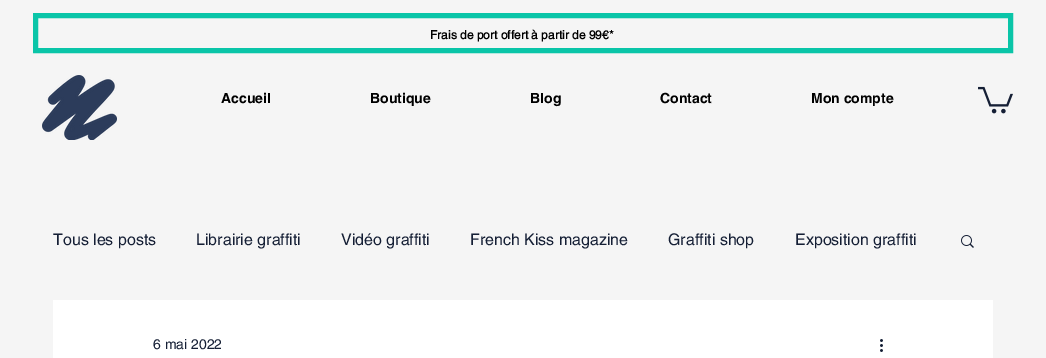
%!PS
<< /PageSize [1046 358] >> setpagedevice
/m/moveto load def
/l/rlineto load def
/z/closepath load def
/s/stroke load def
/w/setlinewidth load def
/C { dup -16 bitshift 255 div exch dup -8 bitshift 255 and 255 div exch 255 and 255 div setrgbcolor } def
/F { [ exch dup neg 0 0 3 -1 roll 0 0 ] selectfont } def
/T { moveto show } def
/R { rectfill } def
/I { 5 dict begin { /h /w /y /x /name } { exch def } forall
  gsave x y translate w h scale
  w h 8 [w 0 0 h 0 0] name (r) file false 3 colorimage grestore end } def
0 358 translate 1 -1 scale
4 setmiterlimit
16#F5F5F5 C
0 0 1046 358 R
16#0AC5A8 C
5 w
35.5 15.5 m 975 0 l 0 35 l -975 0 l z s
/helvetica-Bold 12 F
16#000000 C
(Frais de port offert à partir de 99€*) 430 39 T
(1.rgb) 42 75 75 65 I
/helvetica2-Bold 14 F
(Accueil) 221 103 T
(Boutique) 370 103 T
(Blog) 530 103 T
(Contact) 660 103 T
(Mon compte) 811 103 T
(2.rgb) 978 86 35 28 I
/helvetica-Regular 16 F
16#151F35 C
(Tous les posts) 53 245 T
(Librairie graffiti) 196 245 T
(Vidéo graffiti) 341 245 T
(French Kiss magazine) 470 245 T
(Graffiti shop) 668 245 T
(Exposition graffiti) 795 245 T
(3.rgb) 961 235 13 13 I
16#FFFFFF C
53 300 940 58 R
/helvetica-Regular 14 F
16#151F35 C
(6 mai 2022) 153 349 T
(4.rgb) 880 339 3 13 I
showpage
